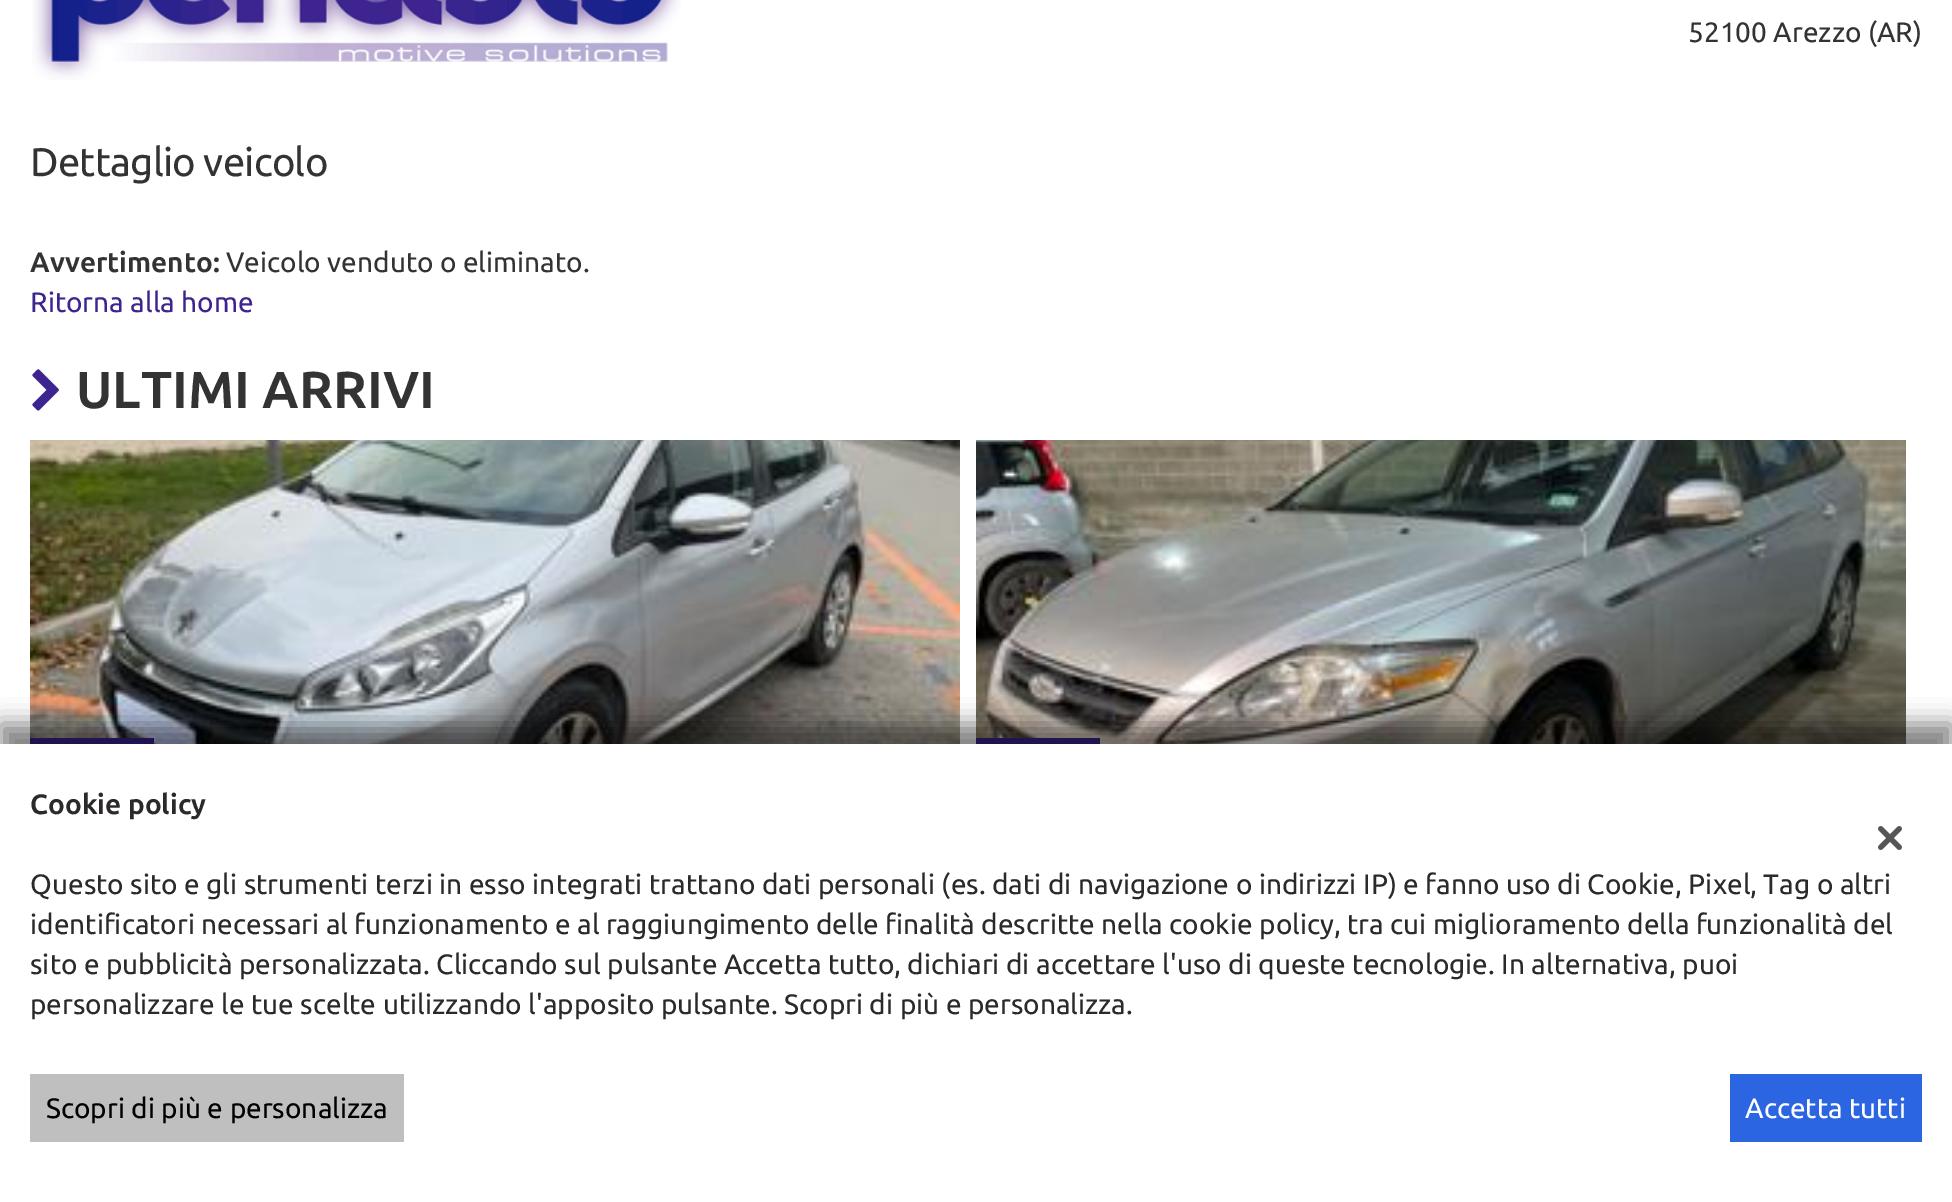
%!PS
<< /PageSize [1952 1202] /PageUsesTransparency true >> setpagedevice
/m/moveto load def
/C { dup -16 bitshift 255 div exch dup -8 bitshift 255 and 255 div exch 255 and 255 div setrgbcolor } def
/F { [ exch dup neg 0 0 3 -1 roll 0 0 ] selectfont } def
/T { moveto show } def
/R { rectfill } def
/A { dup .setfillconstantalpha .setstrokeconstantalpha } def
/Q { 5 dict begin { /r /h /w /y /x } { exch def } forall
  x r add y moveto x w add y 2 copy h add r arct x w add y h add x 1 index r arct
  x y h add x y r arct x y 2 copy exch w add exch r arct closepath end } def
/S { 12 dict begin { /a /b /q /h /w /y /x } { exch def } forall gsave /was 0 def
  9 -2 -9 { dup b mul 4 div /e exch def 1 sub .425 mul 2.718 exch exp 1 add a .99 .min exch div /now exch def
    1 1 now sub 1 was sub div sub A /was now def
    w h .min e 2 mul add 0 gt { x e sub y e sub w e 2 mul add h e 2 mul add
      q e add b .6 mul add w h .min 2 div e add .min 0 .max Q fill } if } for grestore end } def
/I { 5 dict begin { /h /w /y /x /name } { exch def } forall
  gsave x y translate w h scale
  w h 8 [w 0 0 h 0 0] name (r) file false 3 colorimage grestore end } def
0 .pushpdf14devicefilter
0 1202 translate 1 -1 scale
4 setmiterlimit
16#FFFFFF C
0 0 1952 1202 R
(1.rgb) 32 0 649 80 I
/Ubuntu-Regular 28 F
16#333333 C
(52100 Arezzo \(AR\)) 1688 42 T
/Ubuntu-Regular 40 F
30 176 m -.75 0 (Dettaglio veicolo) ashow
/Ubuntu-Bold 28 F
(Avvertimento:) 30 272 T
/Ubuntu-Regular 28 F
(Veicolo venduto o eliminato.) 226 272 T
16#3E248F C
(Ritorna alla home) 30 312 T
(2.rgb) 32 369 27 42 I
/Ubuntu-Bold 52 F
16#333333 C
(ULTIMI ARRIVI) 76 408 T
(3.rgb) 30 440 930 304 I
16#3E248F C
30 738 124 6 R
(4.rgb) 976 440 930 304 I
976 738 124 6 R
16#000000 C
0 724 1952 458 0 12 .5 S
16#FFFFFF C
0 744 1952 458 R
/Ubuntu-Bold 28 F
16#2B2929 C
(Cookie policy) 30 814 T
/Ubuntu-Regular 28 F
(Questo sito e gli strumenti terzi in esso integrati trattano dati personali \(es. dati di navigazione o indirizzi IP\) e fanno uso di Cookie, Pixel, Tag o altri) 30 894 T
(identificatori necessari al funzionamento e al raggiungimento delle finalità descritte nella cookie policy, tra cui miglioramento della funzionalità del) 30 934 T
(sito e pubblicità personalizzata. Cliccando sul pulsante Accetta tutto, dichiari di accettare l'uso di queste tecnologie. In alternativa, puoi) 30 974 T
(personalizzare le tue scelte utilizzando l'apposito pulsante. Scopri di più e personalizza.) 30 1014 T
16#BFBFBF C
30 1074 374 68 R
16#000000 C
(Scopri di più e personalizza) 46 1118 T
16#2C65E1 C
1730 1074 192 68 R
16#FFFFFF C
(Accetta tutti) 1745 1118 T
(5.rgb) 1878 826 24 24 I
.poppdf14devicefilter showpage
